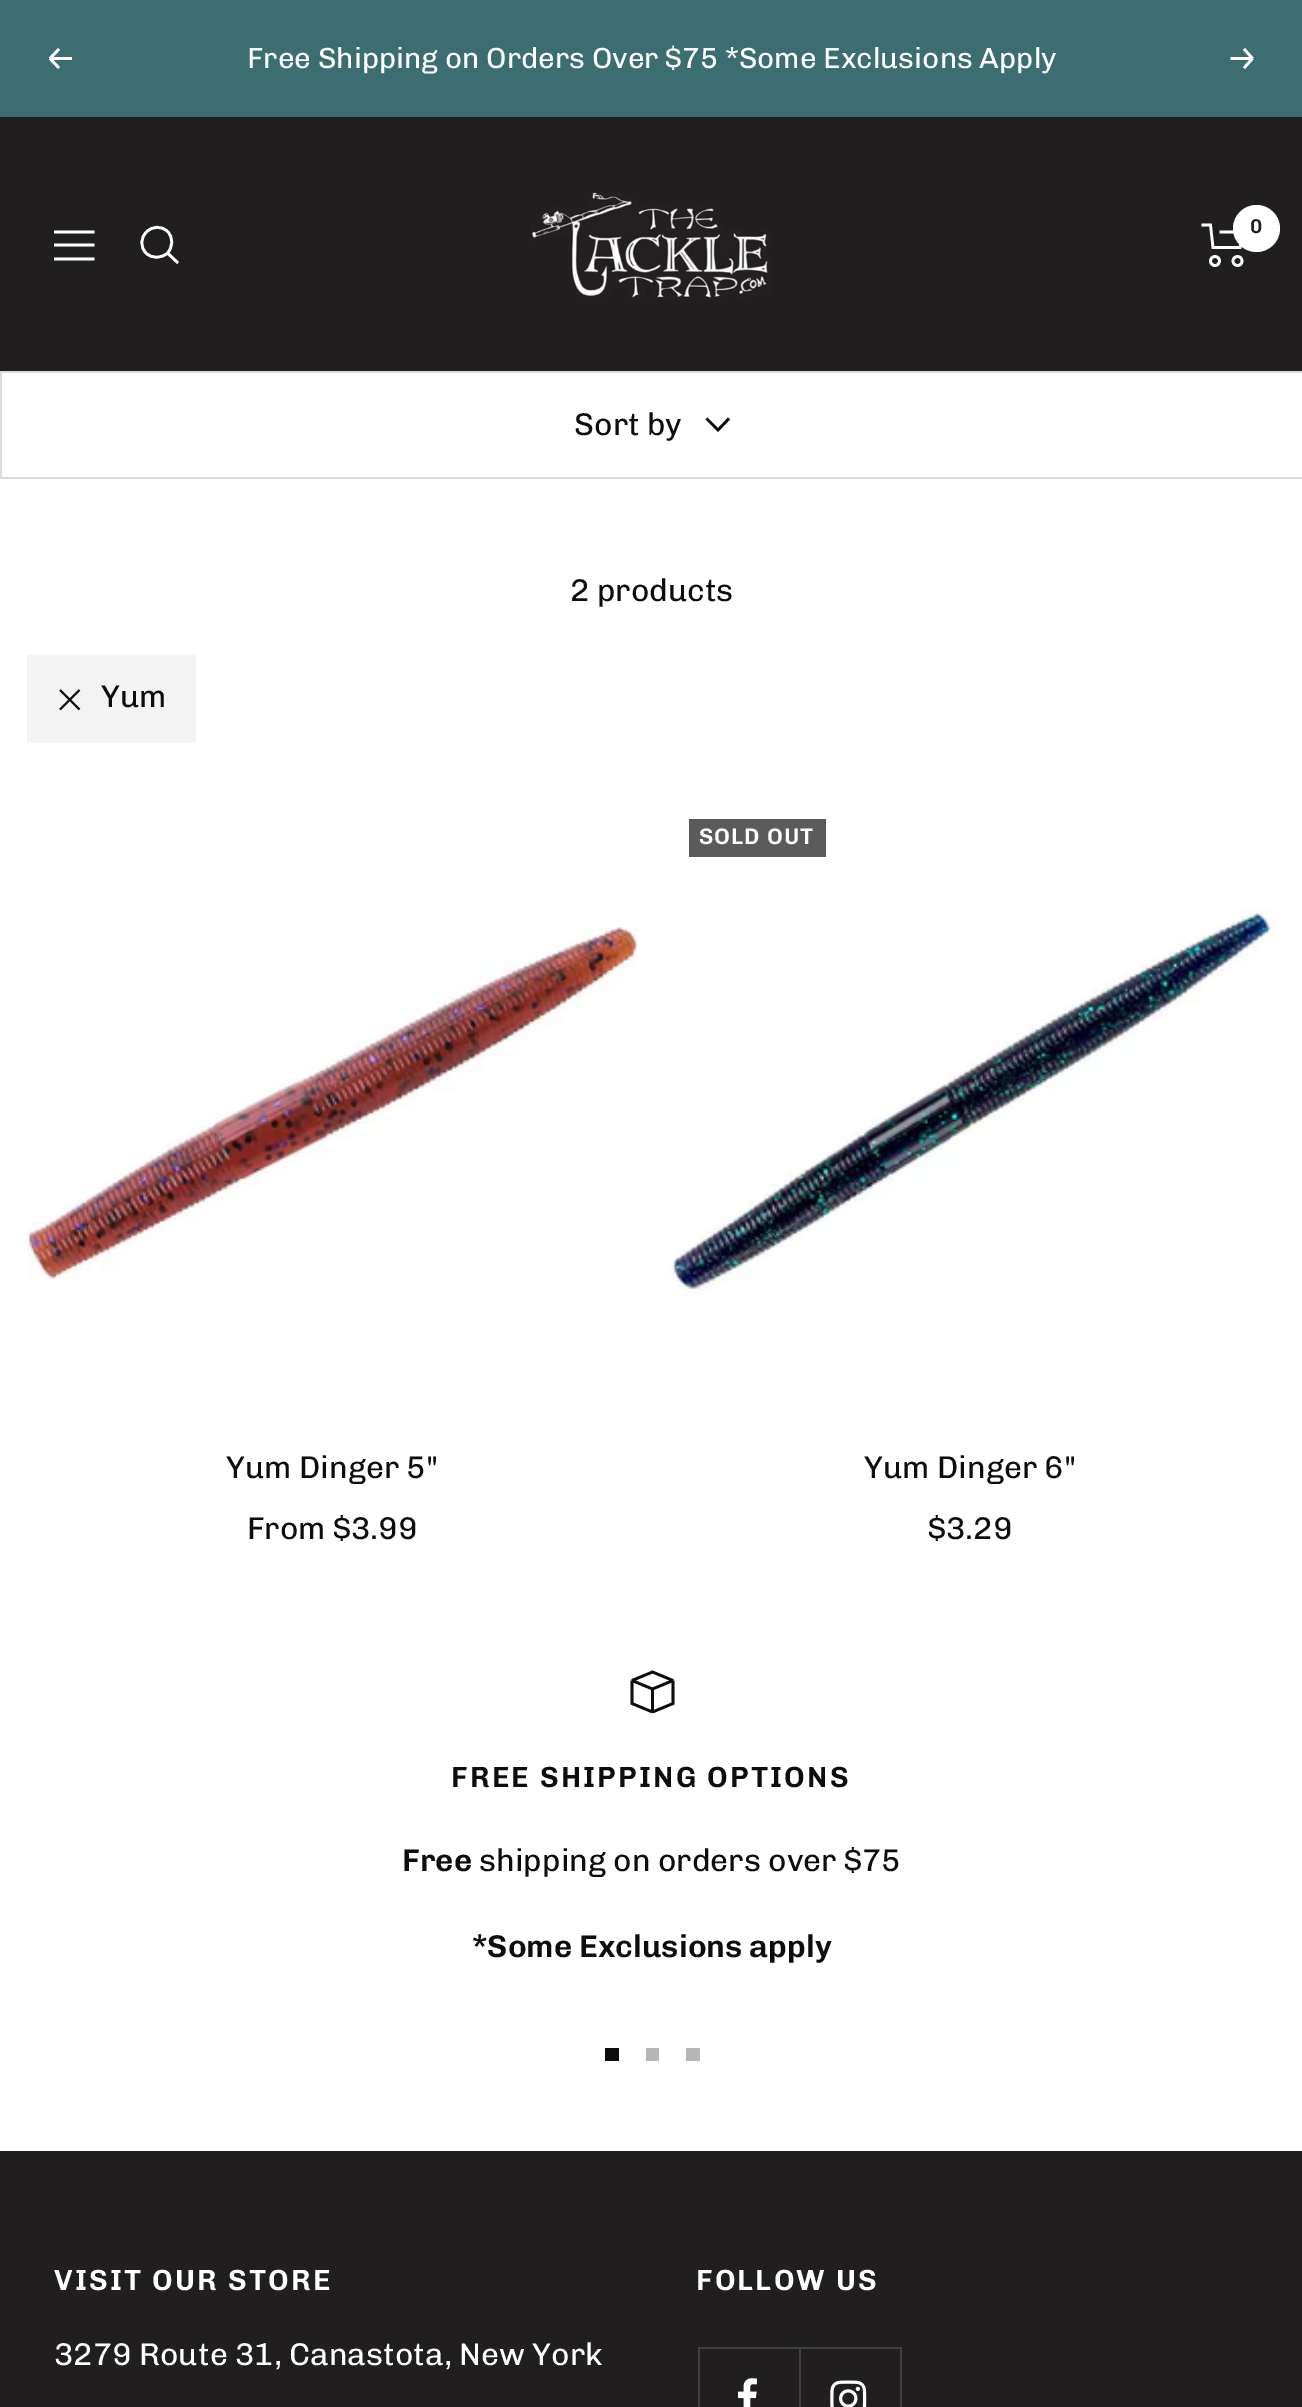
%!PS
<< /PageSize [1302 2407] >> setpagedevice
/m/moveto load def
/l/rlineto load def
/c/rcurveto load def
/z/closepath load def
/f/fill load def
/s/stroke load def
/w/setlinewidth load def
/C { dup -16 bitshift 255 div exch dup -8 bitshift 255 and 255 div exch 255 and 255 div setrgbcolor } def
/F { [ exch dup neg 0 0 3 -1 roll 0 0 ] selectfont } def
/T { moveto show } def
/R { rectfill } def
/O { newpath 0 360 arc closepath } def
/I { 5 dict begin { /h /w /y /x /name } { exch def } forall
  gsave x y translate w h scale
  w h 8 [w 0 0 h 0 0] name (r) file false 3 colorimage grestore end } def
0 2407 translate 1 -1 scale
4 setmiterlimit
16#FFFFFF C
0 0 1302 2407 R
16#3C6E71 C
0 0 1302 117 R
16#FFFFFF C
2.7 w
72 58.5 m -22 0 l 50 58.5 m 9 9.5 l 50 58.5 m 9 -9.5 l s
/Chivo-Regular 29.25 F
(Free Shipping on Orders Over $75 *Some Exclusions Apply) 247 68 T
1230.5 58.5 m 22 0 l 1252.5 58.5 m -8.5 9.5 l 1252.5 58.5 m -8.5 -9.5 l s
16#201E1E C
0 117 1302 254 R
16#FFFFFF C
54 232 m 40.5 0 l 54 259 m 40.5 0 l z 54 245 m 40.5 0 l z s
167.5 253 m 5.5 -6 6 -15.5 0 -21.5 c -6 -6 -15.5 -5.5 -21 .5 c -6 5.5 -6.5 15 -.5 21 c 6 6 15.5 5.5 21.5 0 c z 167.5 253 m 10.5 10 l s
(1.rgb) 531 192 240 108 I
1201.5 225 m 9 0 l 2.5 22.5 l 27 0 l 4 -15.5 l -24.5 0 l s
1215 261 4.5 O s
1237.5 261 4.5 O s
1256.5 228.5 23.5 O f
/Chivo-SemiBold 20 F
16#201E1E C
(0) 1250 233 T
16#DBDBDB C
0 371 1302 2 R
0 477 1302 2 R
0 371 2 108 R
/Chivo-Regular 31.5 F
16#0D0D0D C
(Sort by) 574 435 T
706.5 418.5 m 11.5 11.5 l 11 -11.5 l s
(2 products) 570 601 T
16#F3F3F3 C
27 655 169 88 R
16#0D0D0D C
1.9 w
79.5 709.5 m -19.5 -19.5 l 79.5 690 m -19.5 19.5 l s
(Yum) 101 707 T
(2.rgb) 27 927 611 352 I
(Yum Dinger 5") 226 1478 T
(From $3.99) 247 1539 T
16#5B5B5B C
689 819 137 38 R
/Chivo-SemiBold 22.5 F
16#FFFFFF C
699 844 m 1 0 (SOLD OUT) ashow
(3.rgb) 666 907 610 387 I
/Chivo-Regular 31.5 F
16#0D0D0D C
(Yum Dinger 6") 864 1478 T
($3.29) 928 1539 T
2.7 w
652.5 1712 m 20.5 -8.5 l 0 -23 l 652.5 1712 m -20.5 -8.5 l 0 -23 l 652.5 1712 m 0 -23 l 673 1680.5 m -20.5 -8.5 l -20.5 8.5 l 673 1680.5 m -20.5 8.5 l 632 1680.5 m 20.5 8.5 l s
/Chivo-SemiBold 29.25 F
451 1787 m 2.25 0 (FREE SHIPPING OPTIONS) ashow
/Chivo-SemiBold 31.5 F
(Free) 402 1871 T
/Chivo-Regular 31.5 F
(shipping on orders over $75) 479 1871 T
/Chivo-SemiBold 31.5 F
(*Some Exclusions apply) 472 1957 T
605 2048 14 13 R
16#B6B6B6 C
646 2048 13 13 R
686 2048 14 13 R
16#201E1E C
0 2151 1302 256 R
/Chivo-SemiBold 29.25 F
16#FFFFFF C
54 2290 m 2.25 0 (VISIT OUR STORE) ashow
/Chivo-Regular 31.5 F
(3279 Route 31, Canastota, New York) 54 2365 T
/Chivo-SemiBold 29.25 F
696 2290 m 2.25 0 (FOLLOW US) ashow
16#414040 C
799 2347 2 60 R
698 2347 202 2 R
698 2347 2 60 R
(4.rgb) 738 2378 19 29 I
900 2347 2 60 R
(5.rgb) 830 2380 37 27 I
showpage
